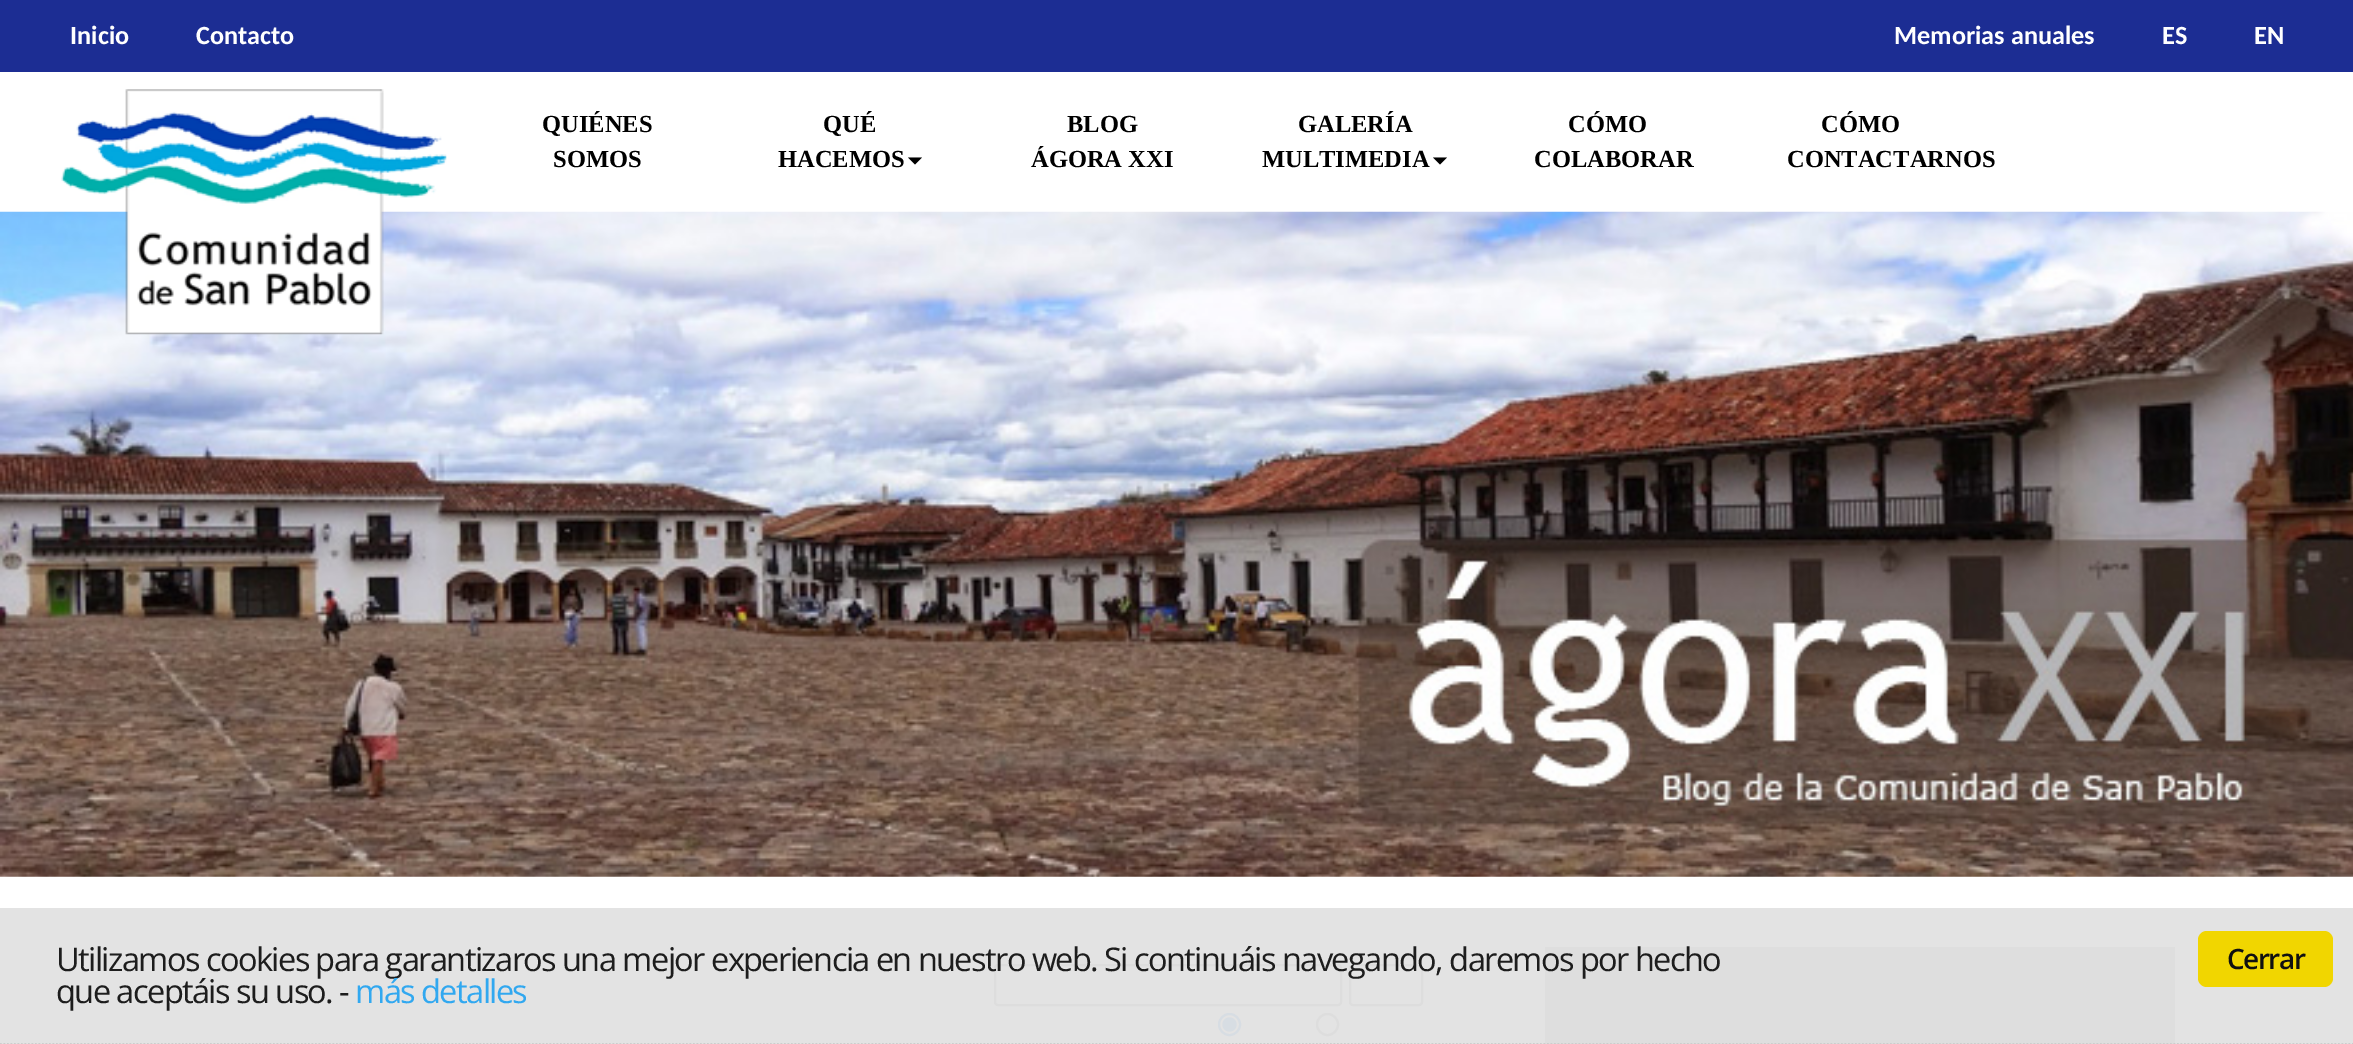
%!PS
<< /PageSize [2353 1044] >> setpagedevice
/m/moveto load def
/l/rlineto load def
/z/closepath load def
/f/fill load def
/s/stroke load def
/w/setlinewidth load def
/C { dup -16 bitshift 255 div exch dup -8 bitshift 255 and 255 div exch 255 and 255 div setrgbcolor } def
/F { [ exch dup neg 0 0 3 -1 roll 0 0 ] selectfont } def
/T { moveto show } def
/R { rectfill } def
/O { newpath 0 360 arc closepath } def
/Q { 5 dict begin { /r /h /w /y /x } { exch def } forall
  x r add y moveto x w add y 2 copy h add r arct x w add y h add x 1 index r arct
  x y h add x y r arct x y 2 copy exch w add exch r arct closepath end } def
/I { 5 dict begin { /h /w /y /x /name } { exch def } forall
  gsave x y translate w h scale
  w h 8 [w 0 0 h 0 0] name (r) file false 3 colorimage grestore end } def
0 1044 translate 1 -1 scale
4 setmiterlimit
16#FFFFFF C
0 0 2353 1044 R
16#E3E3E3 C
0 908 2353 136 R
16#1C2D93 C
0 0 2353 72 R
/Carlito-Bold 26.25 F
16#FFFFFF C
(Inicio) 70 44 T
(Contacto) 196 44 T
(Memorias anuales) 1894 44 T
(ES) 2162 44 T
(EN) 2254 44 T
(2.rgb) 0 211 2353 666 I
(1.rgb) 61 89 386 246 I
/LiberationSerif-Bold 24.5 F
16#000000 C
(QUIÉNES) 542 132 T
(SOMOS) 553 167 T
(QUÉ) 823 132 T
(HACEMOS) 778 167 T
908 157.5 m 14 0 l -7 7 l z f
(BLOG) 1067 132 T
(ÁGORA XXI) 1031 167 T
(GALERÍA) 1298 132 T
(MULTIMEDIA) 1262 167 T
1433 157.5 m 14 0 l -7 7 l z f
(CÓMO) 1568 132 T
(COLABORAR) 1534 167 T
(CÓMO) 1821 132 T
(CONTACTARNOS) 1787 167 T
16#DEDEDE C
1545 947 630 97 R
16#CCCCCC C
1.8 w
[1.75 1.75] 0 setdash
0 1044 m 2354 0 l s
16#DDDDDD C
2 w
[] 0 setdash
995 965 346 40 3 Q s
1350 965 72 40 3 Q s
/OpenSans-Regular 32.67 F
16#1D1D1D C
56 971 m -1.63 0 (Utilizamos cookies para garantizaros una mejor experiencia en nuestro web. Si continuáis navegando, daremos por hecho) ashow
56 1003 m -1.63 0 (que aceptáis su uso. -) ashow
16#31A8F0 C
355 1003 m -1.63 0 (más detalles) ashow
16#F1D600 C
2198 931 135 56 9 Q f
/OpenSans-SemiBold 28 F
16#111111 C
2227 969 m -1.5 0 (Cerrar) ashow
16#D7DDE3 C
1229.5 1024.5 10.5 O s
1229.5 1024.5 7 O f
16#DDDDDD C
1327.5 1024.5 10.5 O s
showpage
